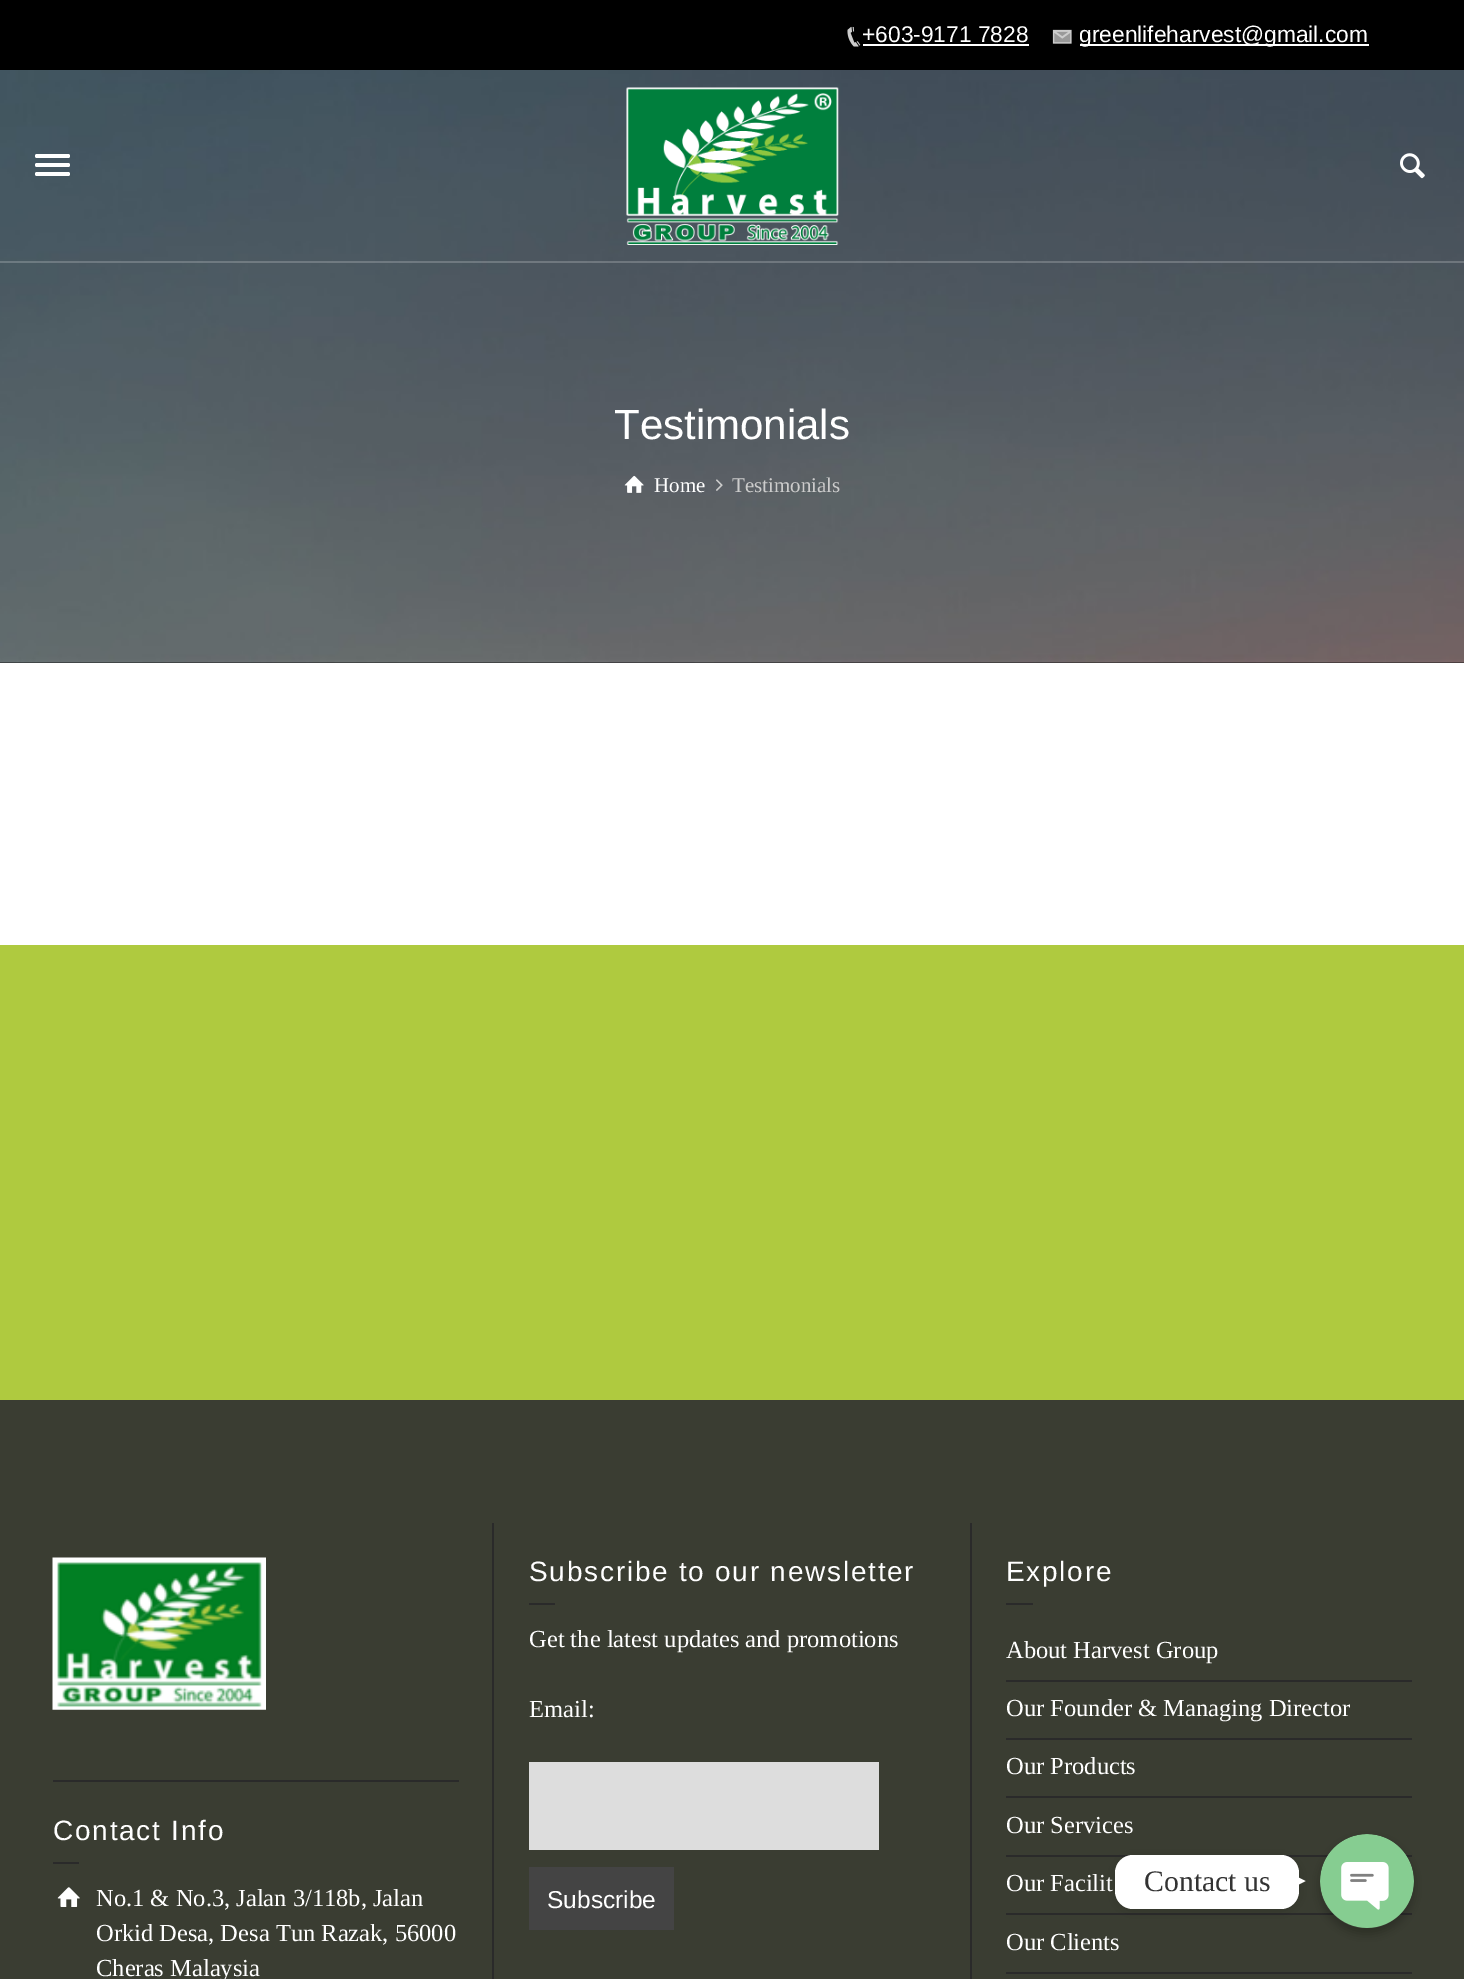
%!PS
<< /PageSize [1464 1979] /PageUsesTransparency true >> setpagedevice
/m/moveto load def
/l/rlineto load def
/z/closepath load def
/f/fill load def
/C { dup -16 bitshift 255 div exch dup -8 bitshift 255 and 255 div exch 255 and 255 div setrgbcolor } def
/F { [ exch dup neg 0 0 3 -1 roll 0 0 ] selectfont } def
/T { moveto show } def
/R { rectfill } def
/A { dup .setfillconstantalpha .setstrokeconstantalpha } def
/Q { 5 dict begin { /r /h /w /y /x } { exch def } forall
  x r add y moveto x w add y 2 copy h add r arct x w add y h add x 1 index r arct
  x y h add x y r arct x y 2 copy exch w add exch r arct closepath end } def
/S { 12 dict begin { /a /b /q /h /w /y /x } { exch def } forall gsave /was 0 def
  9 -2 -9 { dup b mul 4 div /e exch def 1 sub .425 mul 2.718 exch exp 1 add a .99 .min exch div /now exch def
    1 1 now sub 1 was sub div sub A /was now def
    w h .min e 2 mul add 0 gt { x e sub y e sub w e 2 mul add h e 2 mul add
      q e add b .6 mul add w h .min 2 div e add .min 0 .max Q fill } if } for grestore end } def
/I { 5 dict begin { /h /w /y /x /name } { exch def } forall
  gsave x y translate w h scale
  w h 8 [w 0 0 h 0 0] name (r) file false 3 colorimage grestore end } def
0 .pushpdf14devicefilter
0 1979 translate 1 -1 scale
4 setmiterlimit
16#FFFFFF C
0 0 1464 1979 R
16#000000 C
0 0 1464 70 R
(1.rgb) 847 26 14 21 I
/LiberationSans-Regular 22.75 F
16#FFFFFF C
(+603-9171 7828) 862 42 T
863 44 166 2 R
(2.rgb) 1052 29 20 15 I
1080 44 289 2 R
(greenlifeharvest@gmail.com) 1079 42 T
16#000000 C
0 662 1464 1 R
(5.rgb) 0 70 1464 593 I
0.2 A
16#FFFFFF C
0 261 1464 2 R
1 A
35 154 35 4 2 Q f
35 163 35 4 2 Q f
35 172 35 4 2 Q f
(3.rgb) 626 87 213 158 I
(4.rgb) 1400 153 25 26 I
/LiberationSans-Regular 42 F
(Testimonials) 614 439 T
(6.rgb) 624 475 20 18 I
/LiberationSerif-Regular 21 F
(Home) 654 492 T
(7.rgb) 716 479 7 12 I
16#CCCCCC C
(Testimonials) 732 492 T
16#AFCA3F C
0 945 1464 455 R
16#3A3D32 C
0 1400 1464 579 R
(8.rgb) 52 1557 214 153 I
16#2A2A2A C
53 1780 406 2 R
/LiberationSans-Regular 28 F
16#FFFFFF C
53 1840 m 1.75 0 (Contact Info) ashow
16#2A2A2A C
53 1862 26 2 R
(9.rgb) 57 1887 23 20 I
/LiberationSerif-Regular 24.5 F
16#FFFFFF C
(No.1 & No.3, Jalan 3/118b, Jalan) 96 1906 T
(Orkid Desa, Desa Tun Razak, 56000) 96 1941 T
(Cheras Malaysia) 96 1976 T
16#2A2A2A C
492 1523 2 456 R
/LiberationSans-Regular 28 F
16#FFFFFF C
529 1581 m 1.75 0 (Subscribe to our newsletter) ashow
16#2A2A2A C
529 1603 26 2 R
/LiberationSerif-Regular 24.5 F
16#FFFFFF C
(Get the latest updates and promotions) 529 1647 T
(Email:) 529 1717 T
16#DDDDDD C
529 1762 350 88 R
16#444444 C
529 1867 145 63 R
/LiberationSans-Regular 24.5 F
16#FFFFFF C
(Subscribe) 547 1908 T
16#2A2A2A C
970 1523 2 456 R
/LiberationSans-Regular 28 F
16#FFFFFF C
1006 1581 m 1.75 0 (Explore) ashow
16#2A2A2A C
1006 1603 27 2 R
1006 1680 406 2 R
/LiberationSerif-Regular 24.5 F
16#FFFFFF C
(About Harvest Group) 1006 1658 T
16#2A2A2A C
1006 1738 406 2 R
16#FFFFFF C
(Our Founder & Managing Director) 1006 1716 T
16#2A2A2A C
1006 1796 406 2 R
16#FFFFFF C
(Our Products) 1006 1774 T
16#2A2A2A C
1006 1855 406 2 R
16#FFFFFF C
(Our Services) 1006 1833 T
16#2A2A2A C
1006 1913 406 2 R
16#FFFFFF C
(Our Facilit) 1006 1891 T
16#2A2A2A C
1006 1972 406 2 R
16#FFFFFF C
(Our Clients) 1006 1950 T
16#000000 C
1320 1839 94 95 47 5 .25 S
(10.rgb) 1320 1834 94 94 I
1115 1857 184 54 18 7 .15 S
16#FFFFFF C
1115 1855 184 54 18 Q f
/LiberationSerif-Regular 29.75 F
16#333333 C
(Contact us) 1144 1891 T
16#FFFFFF C
1288 1890 m 0 -17.5 l 17.5 8.5 l z f
.poppdf14devicefilter showpage
